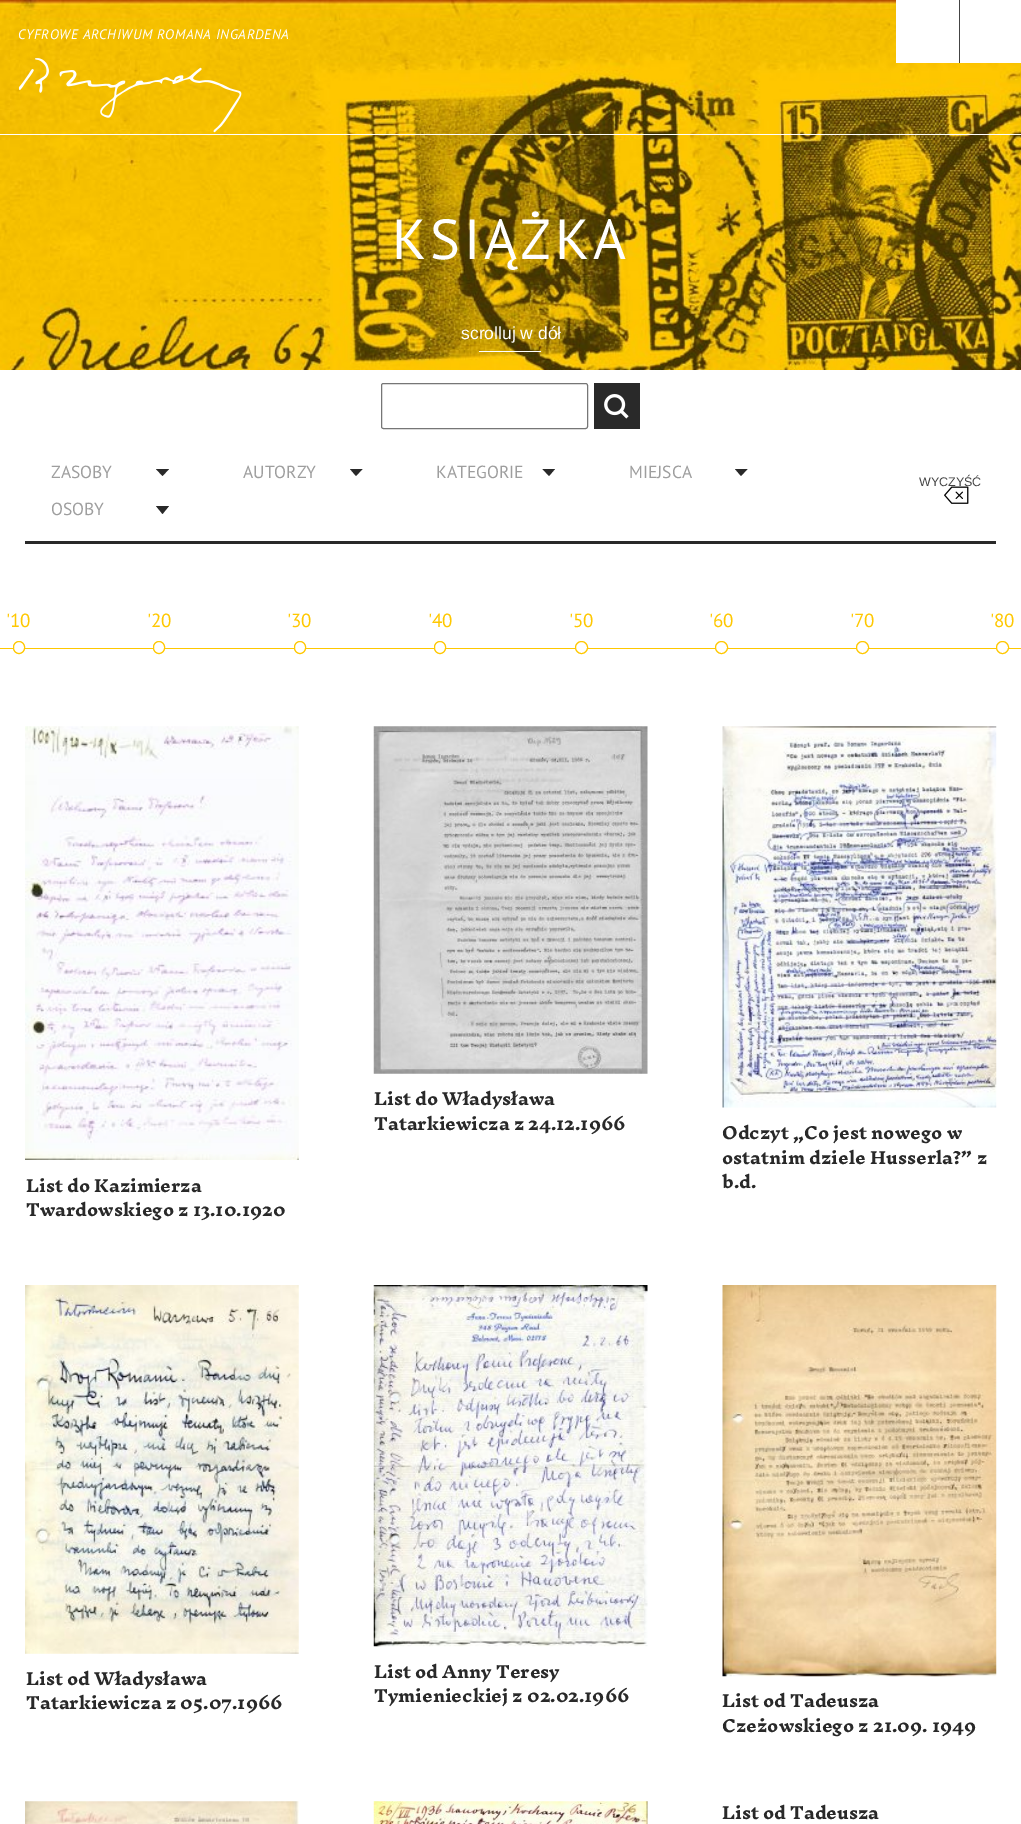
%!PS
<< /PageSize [1021 1824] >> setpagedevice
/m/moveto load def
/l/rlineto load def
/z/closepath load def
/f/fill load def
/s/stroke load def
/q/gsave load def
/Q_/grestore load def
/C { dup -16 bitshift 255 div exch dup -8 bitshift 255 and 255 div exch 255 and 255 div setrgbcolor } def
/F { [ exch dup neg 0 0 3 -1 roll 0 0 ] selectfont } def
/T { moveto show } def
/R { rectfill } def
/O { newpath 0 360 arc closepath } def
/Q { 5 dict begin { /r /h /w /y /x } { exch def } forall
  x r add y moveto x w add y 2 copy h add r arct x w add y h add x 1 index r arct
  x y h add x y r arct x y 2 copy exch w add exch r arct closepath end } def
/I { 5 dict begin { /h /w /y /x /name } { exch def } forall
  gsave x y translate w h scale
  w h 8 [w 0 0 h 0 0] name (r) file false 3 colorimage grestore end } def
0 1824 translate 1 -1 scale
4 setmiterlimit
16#FFFFFF C
0 0 1021 1824 R
(1.rgb) 0 0 1021 370 I
0 134 1021 1 R
/PTSans-Italic 13.75 F
18 39 m .6 0 (CYFROWE ARCHIWUM ROMANA INGARDENA) ashow
(2.rgb) 18 58 224 75 I
896 0 63 63 R
960 0 61 63 R
16#444444 C
959 0 1 63 R
/PTSans-Regular 56.25 F
16#FFFFFF C
392 259 m 3.75 0 (KSIĄŻKA) ashow
/LiberationSans-Regular 17.5 F
(scrolluj w dół) 461 339 T
479 351 62 1 R
16#767676 C
381.5 383.5 206 45 2 Q s
16#292929 C
594 383 46 46 R
(3.rgb) 604 394 25 25 I
25 541 971 3 R
/PTSans-Regular 17.5 F
16#9E9E9E C
(ZASOBY) 51 478 T
16#292929 C
156 469 m 13 0 l -6.5 7 l z f
16#9E9E9E C
(AUTORZY) 243 478 T
16#292929 C
350 469 m 12.5 0 l -6.5 7 l z f
16#9E9E9E C
(KATEGORIE) 436 478 T
16#292929 C
542.5 469 m 12.5 0 l -6 7 l z f
16#9E9E9E C
(MIEJSCA) 629 478 T
16#292929 C
735 469 m 12.5 0 l -6.5 7 l z f
16#9E9E9E C
(OSOBY) 51 515 T
16#292929 C
156 506 m 13 0 l -6.5 8 l z f
/LiberationSans-Regular 12.5 F
16#444444 C
(WYCZYŚĆ) 919 486 T
(4.rgb) 944 486 25 18 I
16#FFC800 C
0 648 1021 1 R
/PTSans-Regular 19 F
('10) 6 627 T
16#FFFFFF C
13.5 641.5 11 12 5.5 Q q f Q_
16#FFC800 C
s
('20) 147 627 T
16#FFFFFF C
153.5 641.5 11 12 5.5 Q q f Q_
16#FFC800 C
s
('30) 287 627 T
16#FFFFFF C
294.5 641.5 11 12 5.5 Q q f Q_
16#FFC800 C
s
('40) 428 627 T
16#FFFFFF C
434.5 641.5 11 12 5.5 Q q f Q_
16#FFC800 C
s
('50) 569 627 T
16#FFFFFF C
581.5 647.5 6 O q f Q_
16#FFC800 C
s
('60) 709 627 T
16#FFFFFF C
721.5 647.5 6 O q f Q_
16#FFC800 C
s
('70) 850 627 T
16#FFFFFF C
862.5 647.5 6 O q f Q_
16#FFC800 C
s
('80) 990 627 T
16#FFFFFF C
1002.5 647.5 6 O q f Q_
16#FFC800 C
s
(5.rgb) 373 726 275 348 I
/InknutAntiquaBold-Bold 16.25 F
16#292929 C
(List do Władysława) 374 1105 T
(Tatarkiewicza z 24.12.1966) 374 1130 T
(6.rgb) 722 726 275 382 I
(Odczyt „Co jest nowego w) 722 1139 T
(ostatnim dziele Husserla?” z) 722 1164 T
(b.d.) 722 1188 T
(7.rgb) 25 726 274 434 I
(List do Kazimierza) 26 1192 T
(Twardowskiego z 13.10.1920) 26 1216 T
(8.rgb) 25 1285 274 369 I
(List od Władysława) 26 1685 T
(Tatarkiewicza z 05.07.1966) 26 1709 T
(9.rgb) 373 1285 275 362 I
(List od Anny Teresy) 374 1678 T
(Tymienieckiej z 02.02.1966) 374 1702 T
(10.rgb) 722 1285 275 392 I
(List od Tadeusza) 722 1707 T
(Czeżowskiego z 21.09. 1949) 722 1732 T
(11.rgb) 25 1801 274 23 I
(12.rgb) 373 1801 275 23 I
(List od Tadeusza) 722 1819 T
showpage
